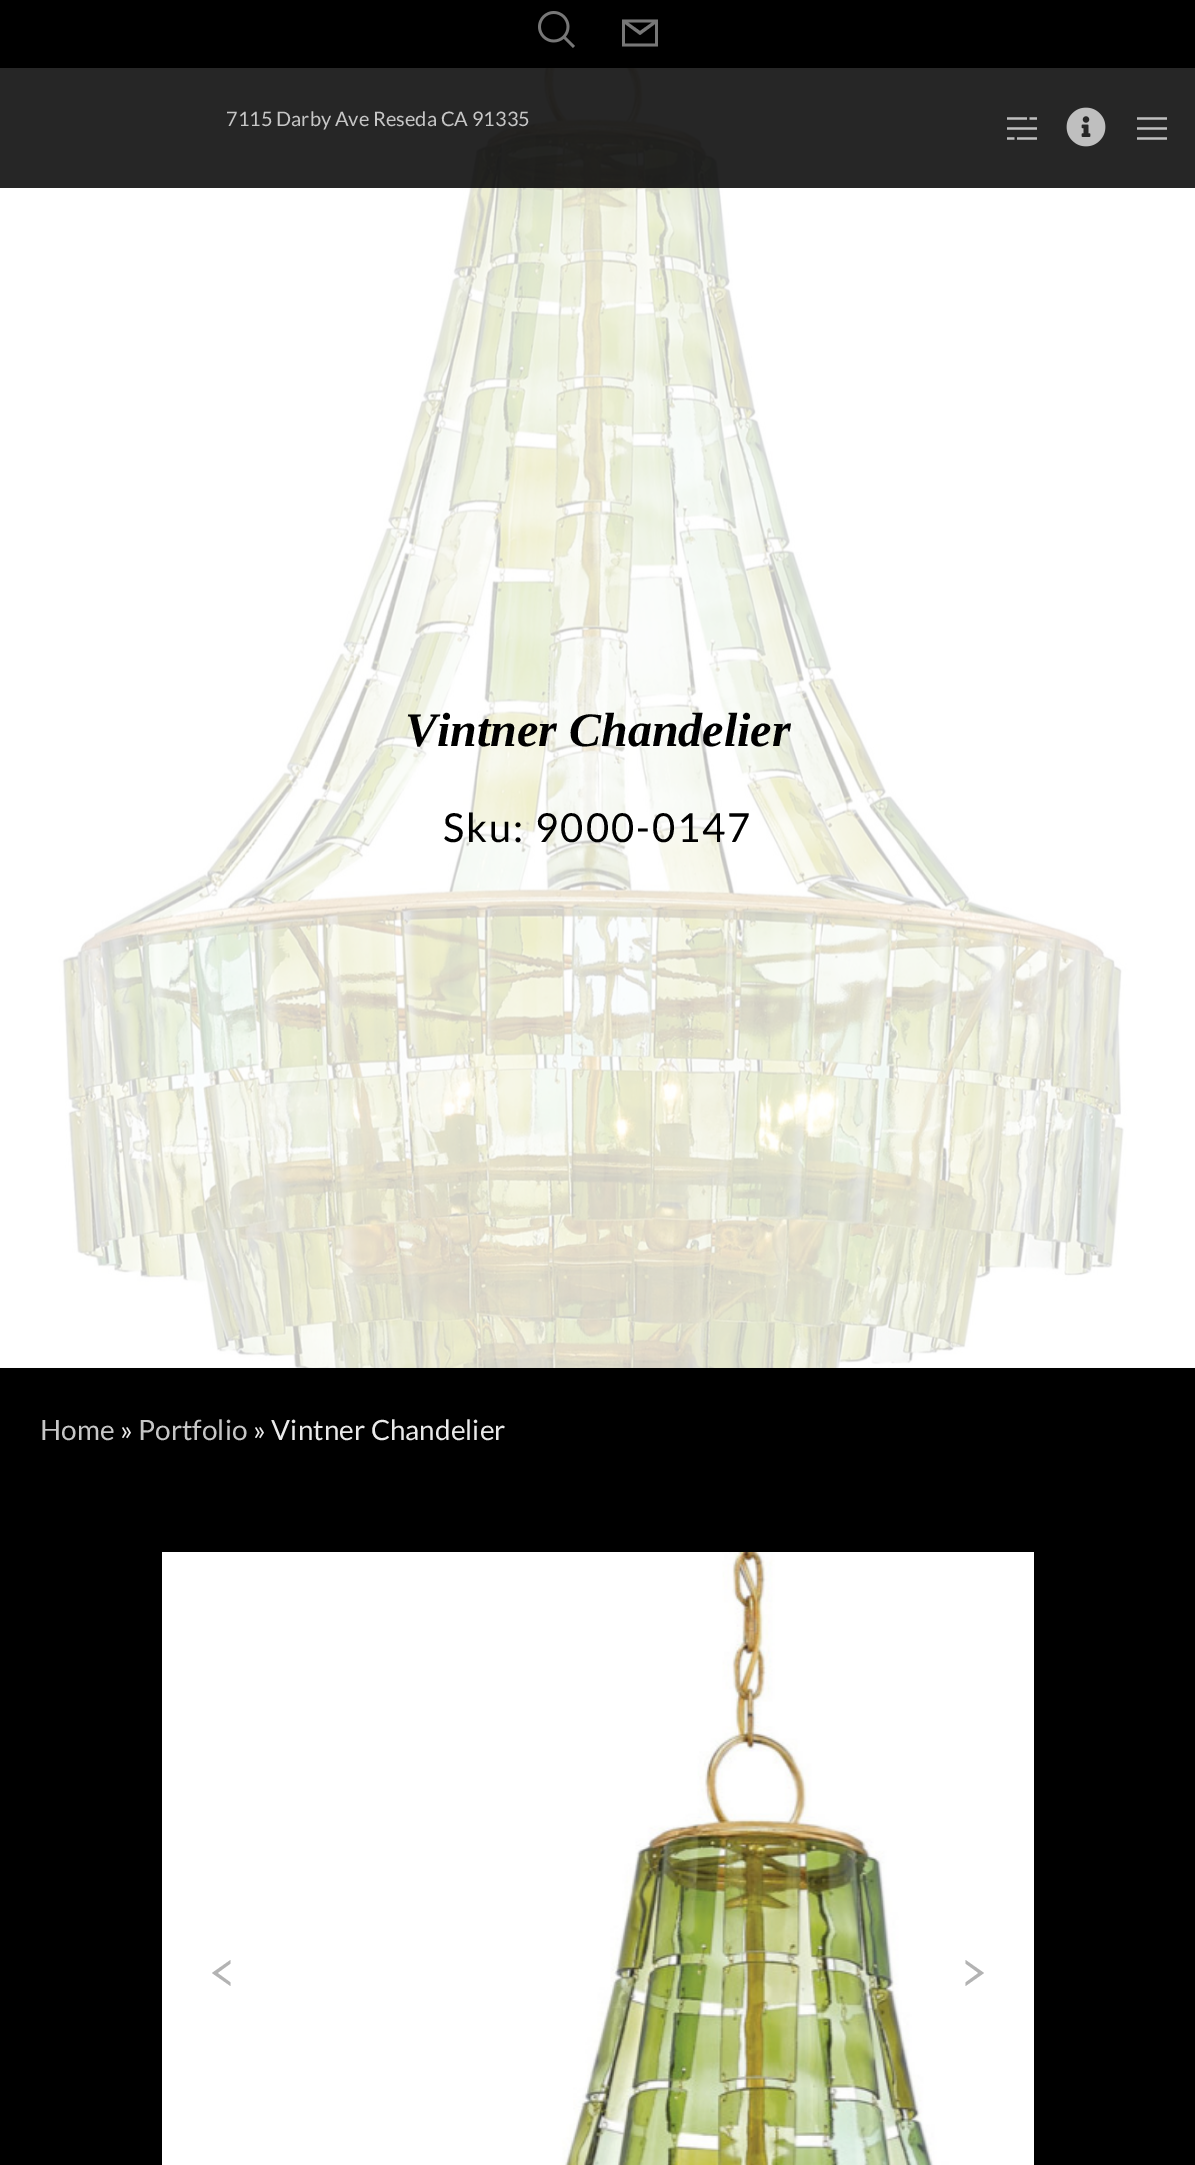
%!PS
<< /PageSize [1195 2165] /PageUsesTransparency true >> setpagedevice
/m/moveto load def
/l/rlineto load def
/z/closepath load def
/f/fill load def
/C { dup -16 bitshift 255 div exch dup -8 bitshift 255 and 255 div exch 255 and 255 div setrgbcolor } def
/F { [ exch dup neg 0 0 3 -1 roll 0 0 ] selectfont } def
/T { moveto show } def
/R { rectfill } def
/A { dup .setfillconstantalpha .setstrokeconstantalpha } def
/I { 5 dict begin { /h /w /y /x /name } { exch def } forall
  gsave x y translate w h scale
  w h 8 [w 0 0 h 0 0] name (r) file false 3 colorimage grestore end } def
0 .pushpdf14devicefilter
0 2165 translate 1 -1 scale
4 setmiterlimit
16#000000 C
0 0 1195 2165 R
(1.rgb) 538 11 37 37 I
16#777777 C
622 19.5 m 0 27 l 36 0 l 0 -27 l z 652 22.5 m -12 8.5 l -12 -8.5 l z 625 43.5 m 0 -19.5 l 15 11 l 15 -11 l 0 19.5 l z f
(5.rgb) 0 68 1195 1300 I
0.85 A
16#000000 C
0 68 1195 120 R
/Lato-Regular 20 F
1 A
16#C6C6C6 C
(7115 Darby Ave Reseda CA 91335) 226 126 T
(2.rgb) 1007 117 30 23 I
(3.rgb) 1066 107 40 40 I
(4.rgb) 1137 117 30 23 I
/LiberationSerif-BoldItalic 48 F
16#000000 C
(Vintner Chandelier) 405 746 T
/Lato-Regular 40 F
443 842 m 2 0 (Sku: 9000-0147) ashow
/Lato-Regular 28 F
16#C6C6C6 C
(Home) 40 1440 T
16#EAEAEA C
(») 120 1440 T
16#C6C6C6 C
(Portfolio) 138 1440 T
16#EAEAEA C
(» Vintner Chandelier) 253 1440 T
(6.rgb) 162 1552 872 613 I
16#B3B3B3 C
230.5 1986 m 0 -3.5 l -13 -9.5 l 13 -9.5 l 0 -3.5 l -18.5 13 l z f
965.5 1960 m 0 3.5 l 13 9.5 l -13 9.5 l 0 3.5 l 18.5 -13 l z f
.poppdf14devicefilter showpage
